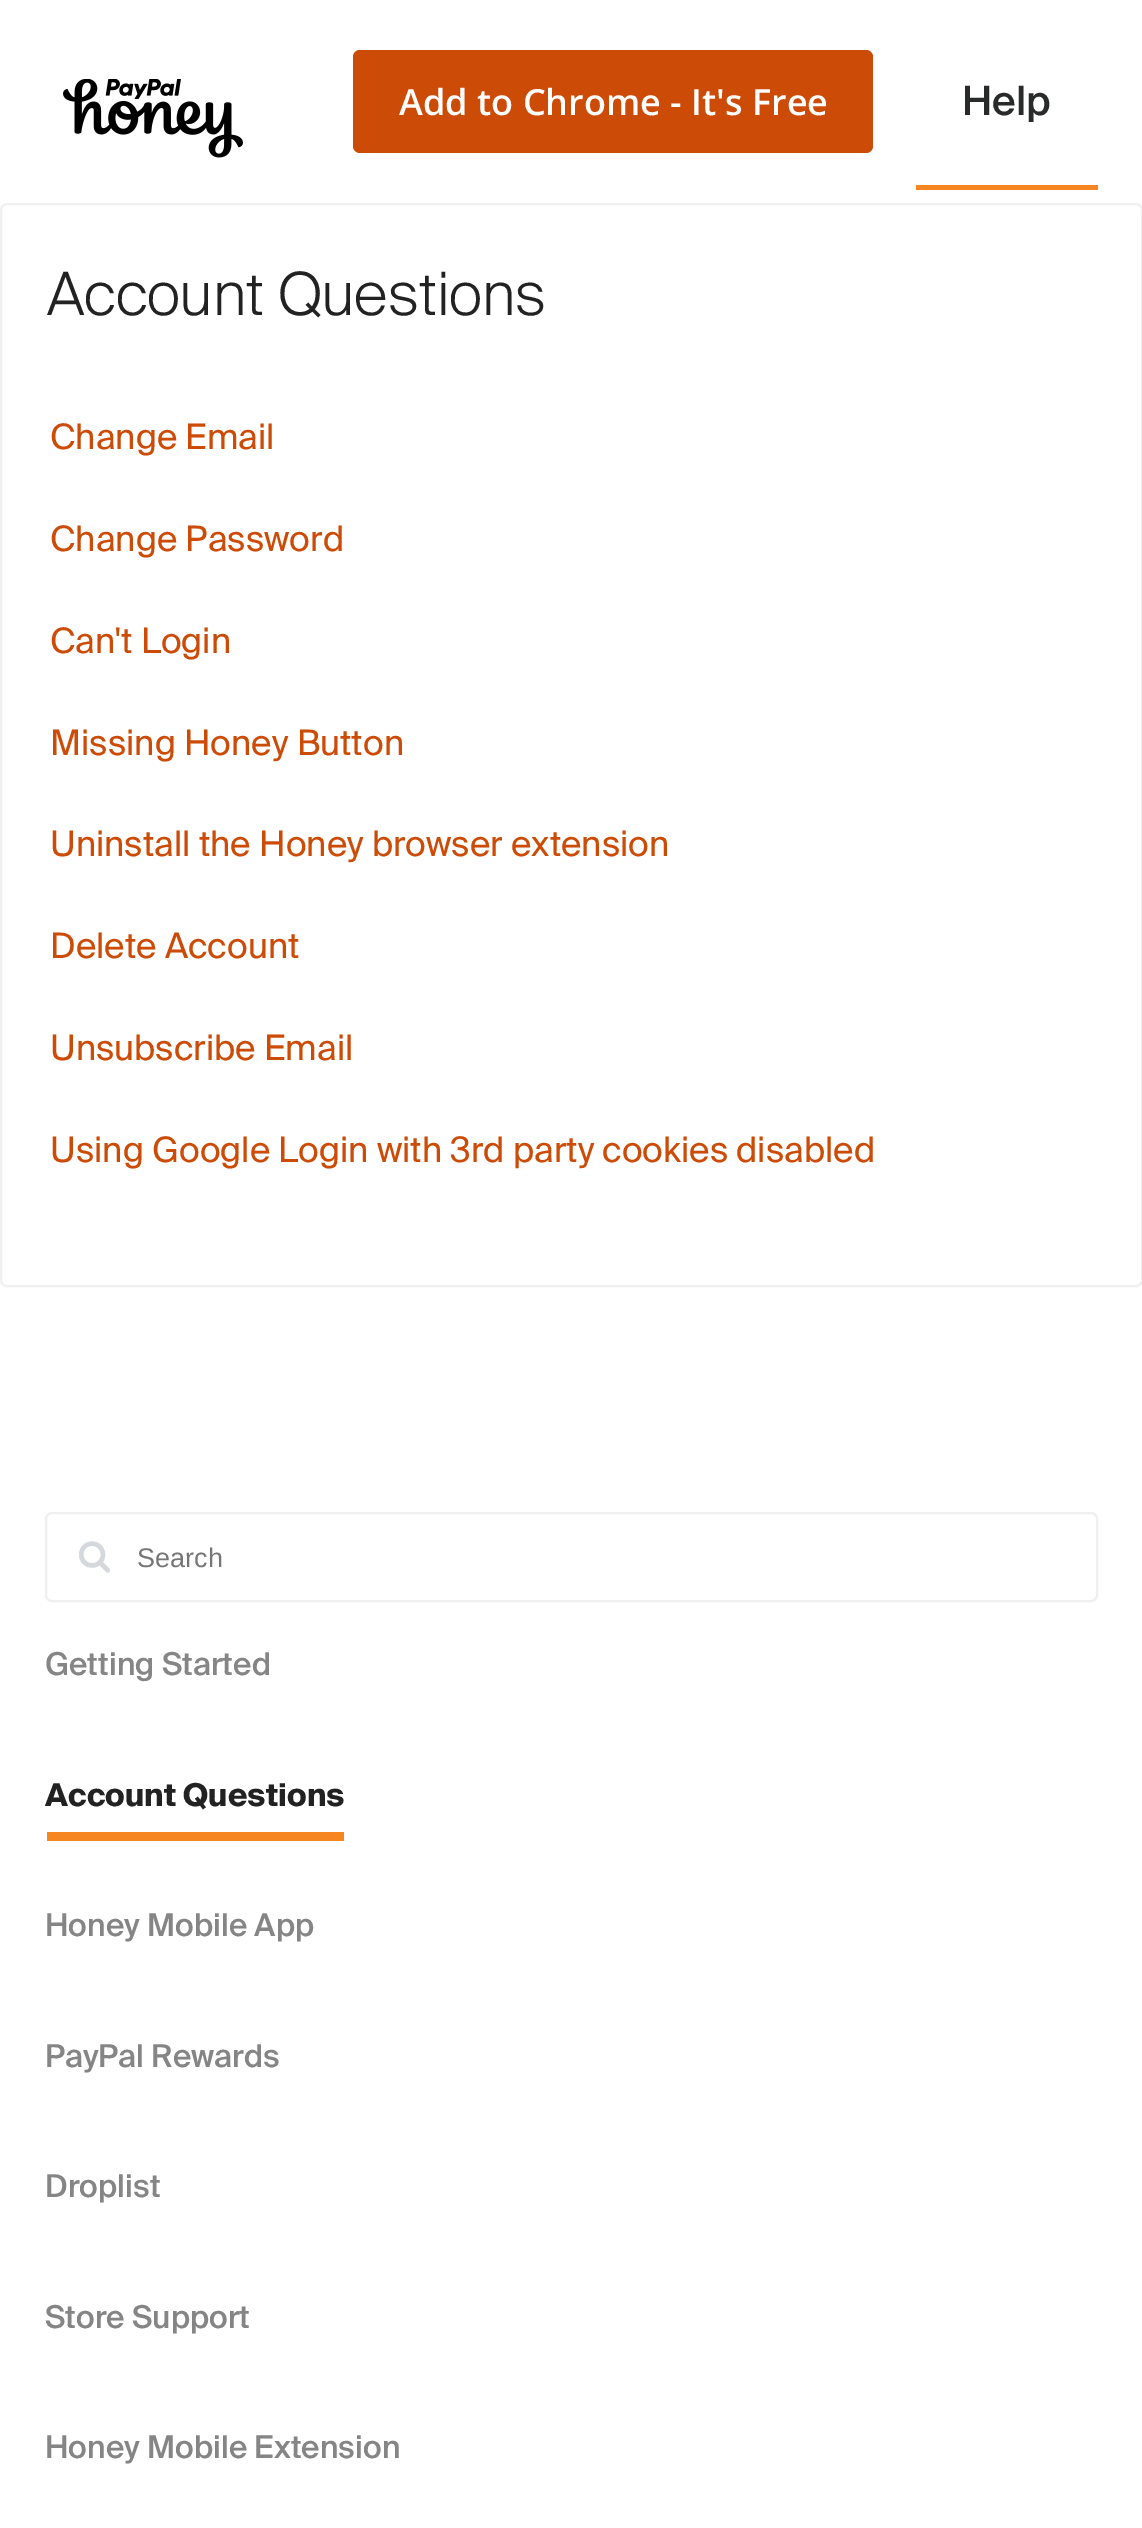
%!PS
<< /PageSize [1142 2528] >> setpagedevice
/f/fill load def
/s/stroke load def
/w/setlinewidth load def
/C { dup -16 bitshift 255 div exch dup -8 bitshift 255 and 255 div exch 255 and 255 div setrgbcolor } def
/F { [ exch dup neg 0 0 3 -1 roll 0 0 ] selectfont } def
/T { moveto show } def
/R { rectfill } def
/Q { 5 dict begin { /r /h /w /y /x } { exch def } forall
  x r add y moveto x w add y 2 copy h add r arct x w add y h add x 1 index r arct
  x y h add x y r arct x y 2 copy exch w add exch r arct closepath end } def
/I { 5 dict begin { /h /w /y /x /name } { exch def } forall
  gsave x y translate w h scale
  w h 8 [w 0 0 h 0 0] name (r) file false 3 colorimage grestore end } def
0 2528 translate 1 -1 scale
4 setmiterlimit
16#FFFFFF C
0 0 1142 2528 R
16#CC4B06 C
353 50 520 103 7 Q f
/OpenSans-SemiBold 36 F
16#FFFFFF C
(Add to Chrome - It's Free) 399 115 T
(1.rgb) 63 79 180 79 I
16#F58621 C
916 185 182 5 R
/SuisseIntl-Medium 40.5 F
16#292A2A C
(Help) 962 115 T
16#F0F0F0 C
2 w
1 204 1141 1082 6 Q s
/SuisseIntl-Light 59.5 F
16#222222 C
(Account Questions) 47 315 T
/SuisseIntl-Regular 35.1 F
16#CC4B06 C
(Change Email) 50 449 T
(Change Password) 50 551 T
(Can't Login) 50 653 T
(Missing Honey Button) 50 755 T
(Uninstall the Honey browser extension) 50 856 T
(Delete Account) 50 958 T
(Unsubscribe Email) 50 1060 T
(Using Google Login with 3rd party cookies disabled) 50 1162 T
(2.rgb) 79 1541 31 32 I
16#F0F0F0 C
46 1513 1051 88 6 Q s
/LiberationSans-Regular 27 F
16#767676 C
(Search) 137 1567 T
/SuisseIntl-Medium 31.5 F
16#858585 C
(Getting Started) 45 1675 T
16#F58621 C
47 1832 297 9 R
/SuisseIntl-Bold 31.5 F
16#222222 C
(Account Questions) 45 1806 T
/SuisseIntl-Medium 31.5 F
16#858585 C
(Honey Mobile App) 45 1936 T
(PayPal Rewards) 45 2067 T
(Droplist) 45 2197 T
(Store Support) 45 2328 T
(Honey Mobile Extension) 45 2458 T
showpage
